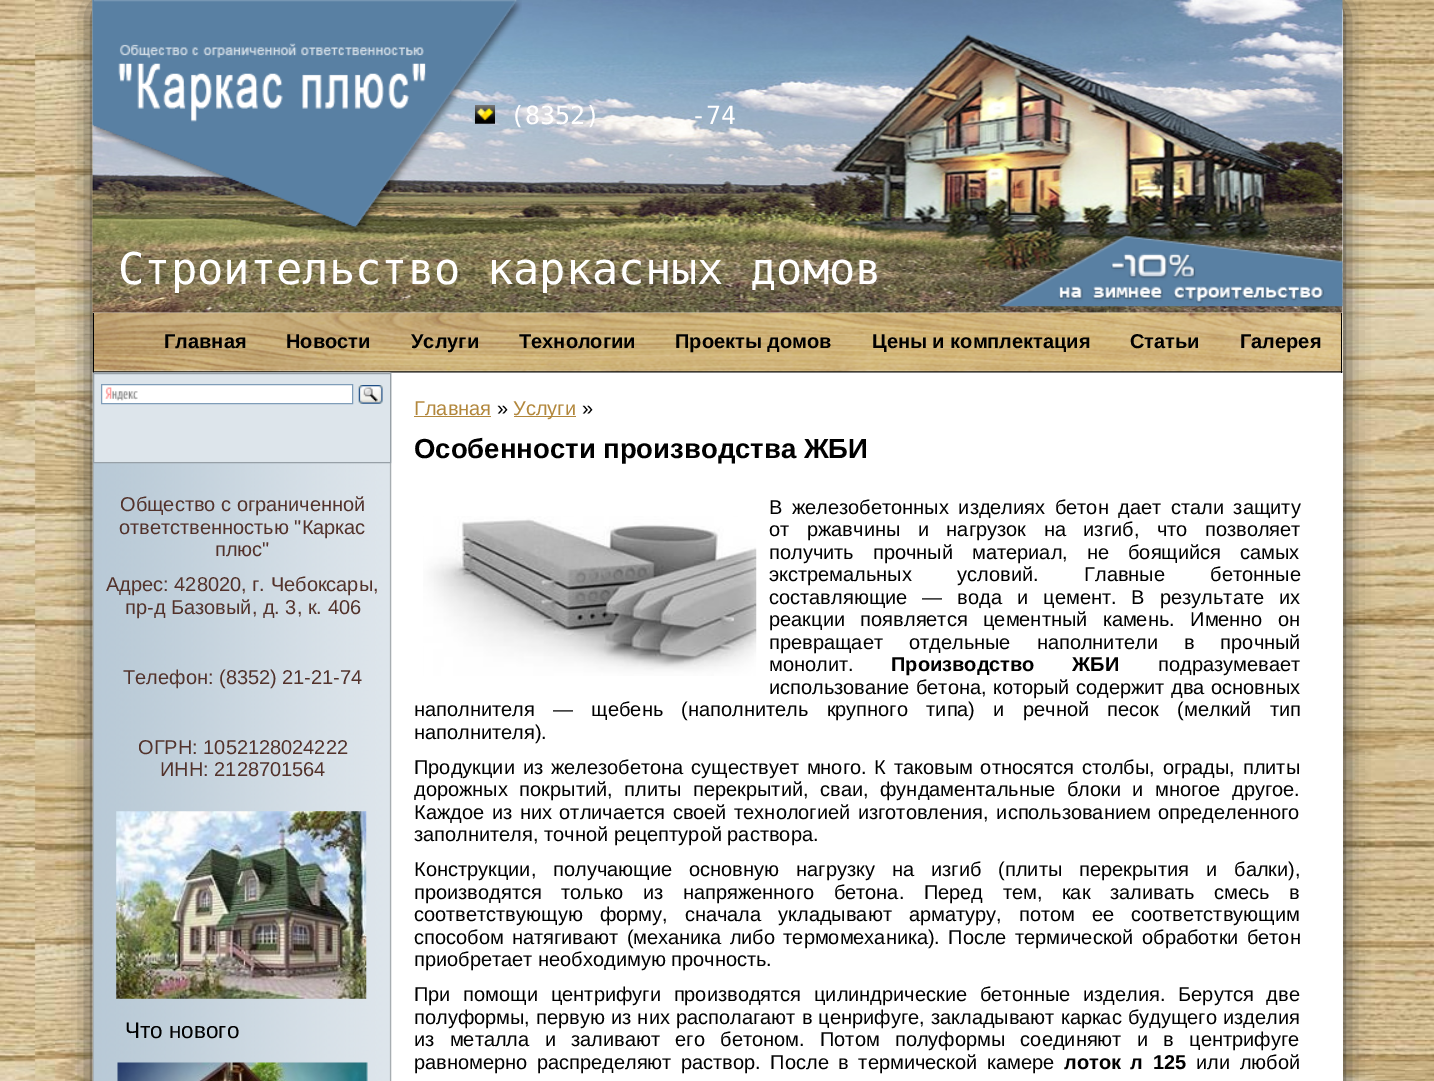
%!PS
<< /PageSize [1434 1081] /PageUsesTransparency true >> setpagedevice
/m/moveto load def
/l/rlineto load def
/z/closepath load def
/f/fill load def
/s/stroke load def
/q/gsave load def
/Q_/grestore load def
/C { dup -16 bitshift 255 div exch dup -8 bitshift 255 and 255 div exch 255 and 255 div setrgbcolor } def
/F { [ exch dup neg 0 0 3 -1 roll 0 0 ] selectfont } def
/T { moveto show } def
/R { rectfill } def
/A { dup .setfillconstantalpha .setstrokeconstantalpha } def
/Q { 5 dict begin { /r /h /w /y /x } { exch def } forall
  x r add y moveto x w add y 2 copy h add r arct x w add y h add x 1 index r arct
  x y h add x y r arct x y 2 copy exch w add exch r arct closepath end } def
/S { 12 dict begin { /a /b /q /h /w /y /x } { exch def } forall gsave /was 0 def
  9 -2 -9 { dup b mul 4 div /e exch def 1 sub .425 mul 2.718 exch exp 1 add a .99 .min exch div /now exch def
    1 1 now sub 1 was sub div sub A /was now def
    w h .min e 2 mul add 0 gt { x e sub y e sub w e 2 mul add h e 2 mul add
      q e add b .6 mul add w h .min 2 div e add .min 0 .max Q fill } if } for grestore end } def
/I { 5 dict begin { /h /w /y /x /name } { exch def } forall
  gsave x y translate w h scale
  w h 8 [w 0 0 h 0 0] name (r) file false 3 colorimage grestore end } def
0 .pushpdf14devicefilter
0 1081 translate 1 -1 scale
4 setmiterlimit
16#FFFFFF C
0 0 1434 1081 R
(1.rgb) 0 0 1434 1081 I
16#323232 C
93 0 1250 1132 13 12.5 1 S
16#FFFFFF C
93 0 1250 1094 13 Q f
(6.rgb) 93 312 1250 61 I
(2.rgb) 92 0 1251 313 I
(3.rgb) 92 0 430 235 I
(4.rgb) 475 105 20 19 I
/DejaVuSansMono-Regular 25 F
(\(8352\)) 510 124 T
(-74) 691 124 T
/DejaVuSansMono-Regular 43.75 F
(Строительство каркасных домов) 118 284 T
(5.rgb) 997 230 346 77 I
16#000000 C
1341 313 1 60 R
93 313 1 60 R
/LiberationSans-Bold 20 F
(Главная) 164 348 T
(Новости) 286 348 T
(Услуги) 411 348 T
(Технологии) 519 348 T
(Проекты домов) 675 348 T
(Цены и комплектация) 872 348 T
(Статьи) 1130 348 T
(Галерея) 1240 348 T
(7.rgb) 92 372 300 709 I
16#DDE5EB C
93.5 373.5 m 297 0 l 0 89 l -297 0 l z q f Q_
16#97A0A7 C
s
16#FFFFFF C
102 385 250 18 R
(8.rgb) 105 387 33 14 I
16#7F9DB9 C
101.5 384.5 251 19 rectstroke
(9.rgb) 358 385 25 19 I
/LiberationSans-Regular 20 F
16#52322B C
(Общество с ограниченной) 120 511 T
(ответственностью "Каркас) 119 534 T
(плюс") 215 556 T
(Адрес: 428020, г. Чебоксары,) 106 591 T
(пр-д Базовый, д. 3, к. 406) 125 614 T
(Телефон: \(8352\) 21-21-74) 123 684 T
(ОГРН: 1052128024222) 138 754 T
(ИНН: 2128701564) 160 776 T
(10.rgb) 116 811 251 188 I
/LiberationSans-Regular 22.5 F
16#000000 C
(Что нового) 125 1038 T
(11.rgb) 117 1062 251 19 I
/LiberationSans-Regular 20 F
16#B2873C C
(Главная) 414 415 T
414 416 77 1 R
16#000000 C
(») 497 415 T
16#B2873C C
514 416 62 1 R
(Услуги) 513 415 T
16#000000 C
(») 582 415 T
/LiberationSans-Bold 27.5 F
(Особенности производства ЖБИ) 414 458 T
/LiberationSans-Regular 20 F
769 514 m 4 0 32 (В железобетонных изделиях бетон дает стали защиту) widthshow
(12.rgb) 423 516 334 160 I
769 536 m 12 0 32 (от ржавчины и нагрузок на изгиб, что позволяет) widthshow
769 559 m 13.5 0 32 (получить прочный материал, не боящийся самых) widthshow
769 581 m 40 0 32 (экстремальных условий. Главные бетонные) widthshow
769 604 m 9.5 0 32 (составляющие — вода и цемент. В результате их) widthshow
769 626 m 10 0 32 (реакции появляется цементный камень. Именно он) widthshow
769 649 m 20.5 0 32 (превращает отдельные наполнители в прочный) widthshow
(монолит.) 769 671 T
/LiberationSans-Bold 20 F
891 671 m 32 0 32 (Производство ЖБИ) widthshow
/LiberationSans-Regular 20 F
(подразумевает) 1158 671 T
769 694 m .75 0 32 (использование бетона, который содержит два основных) widthshow
414 716 m 12.75 0 32 (наполнителя — щебень \(наполнитель крупного типа\) и речной песок \(мелкий тип) widthshow
(наполнителя\).) 414 739 T
414 774 m 2.25 0 32 (Продукции из железобетона существует много. К таковым относятся столбы, ограды, плиты) widthshow
414 796 m 6 0 32 (дорожных покрытий, плиты перекрытий, сваи, фундаментальные блоки и многое другое.) widthshow
414 819 m 2 0 32 (Каждое из них отличается своей технологией изготовления, использованием определенного) widthshow
(заполнителя, точной рецептурой раствора.) 414 841 T
414 876 m 11.5 0 32 (Конструкции, получающие основную нагрузку на изгиб \(плиты перекрытия и балки\),) widthshow
414 899 m 14 0 32 (производятся только из напряженного бетона. Перед тем, как заливать смесь в) widthshow
414 921 m 11.5 0 32 (соответствующую форму, сначала укладывают арматуру, потом ее соответствующим) widthshow
414 944 m 2.75 0 32 (способом натягивают \(механика либо термомеханика\). После термической обработки бетон) widthshow
(приобретает необходимую прочность.) 414 966 T
414 1001 m 7.25 0 32 (При помощи центрифуги производятся цилиндрические бетонные изделия. Берутся две) widthshow
414 1024 m .6 0 32 (полуформы, первую из них располагают в ценрифуге, закладывают каркас будущего изделия) widthshow
414 1046 m 9.75 0 32 (из металла и заливают его бетоном. Потом полуформы соединяют и в центрифуге) widthshow
414 1069 m 4 0 32 (равномерно распределяют раствор. После в термической камере) widthshow
/LiberationSans-Bold 20 F
1064 1069 m 4 0 32 (лоток л 125) widthshow
/LiberationSans-Regular 20 F
1196 1069 m 4 0 32 (или любой) widthshow
.poppdf14devicefilter showpage
